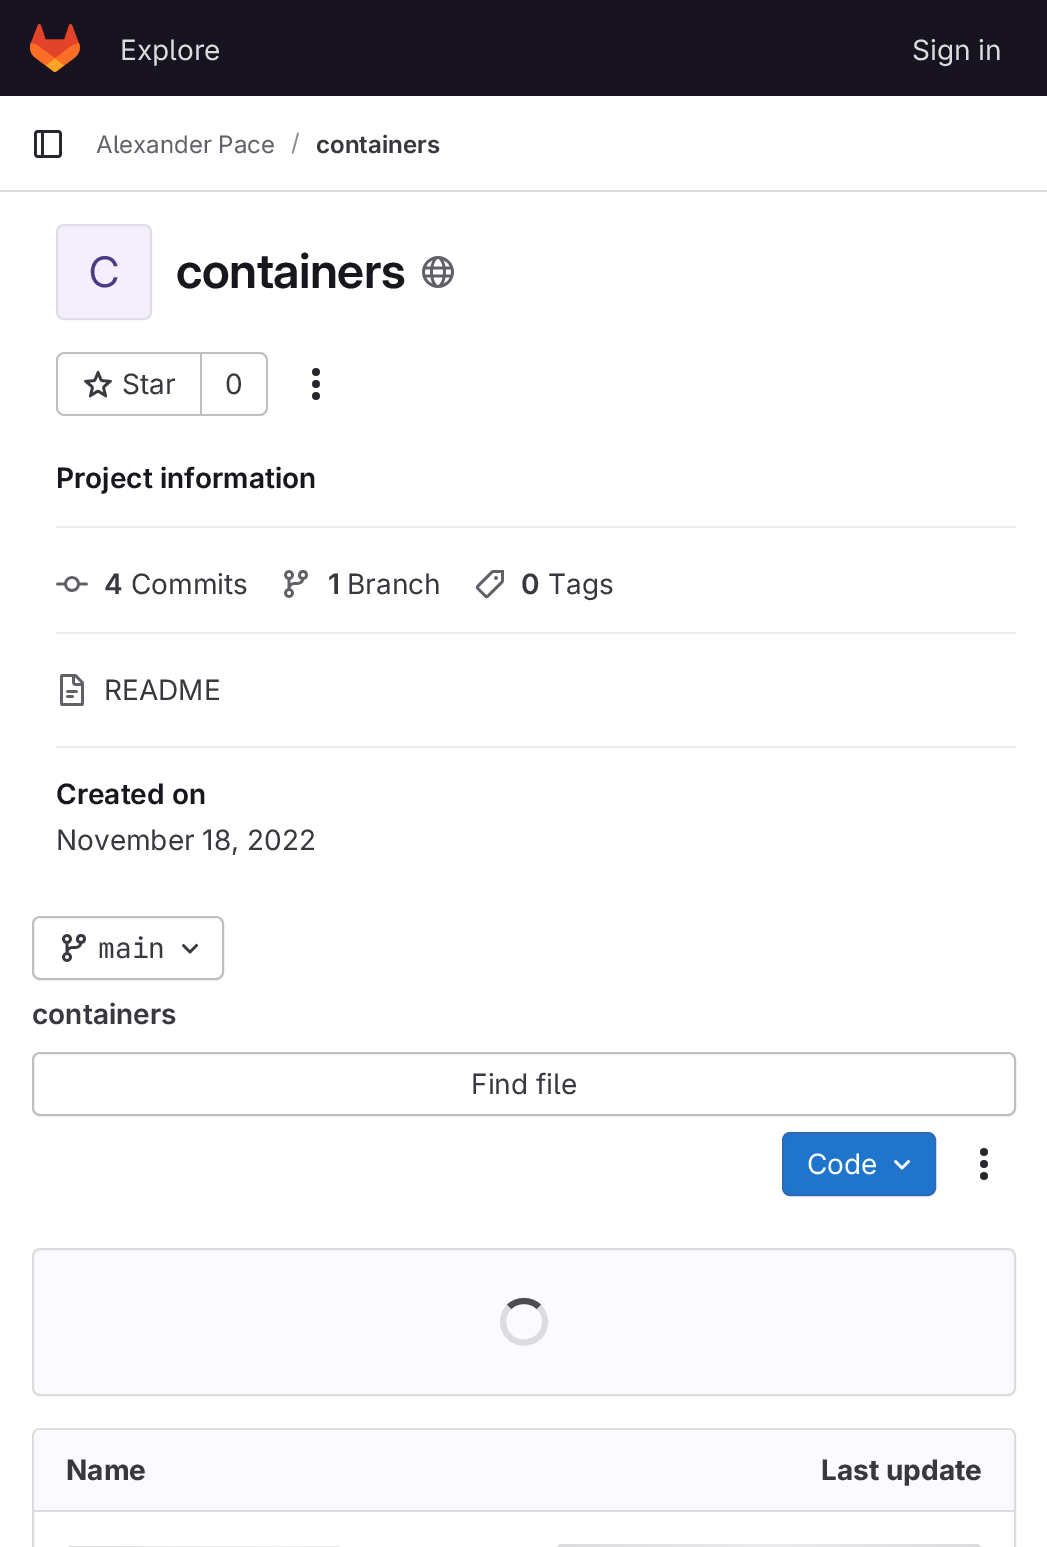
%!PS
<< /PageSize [1047 1547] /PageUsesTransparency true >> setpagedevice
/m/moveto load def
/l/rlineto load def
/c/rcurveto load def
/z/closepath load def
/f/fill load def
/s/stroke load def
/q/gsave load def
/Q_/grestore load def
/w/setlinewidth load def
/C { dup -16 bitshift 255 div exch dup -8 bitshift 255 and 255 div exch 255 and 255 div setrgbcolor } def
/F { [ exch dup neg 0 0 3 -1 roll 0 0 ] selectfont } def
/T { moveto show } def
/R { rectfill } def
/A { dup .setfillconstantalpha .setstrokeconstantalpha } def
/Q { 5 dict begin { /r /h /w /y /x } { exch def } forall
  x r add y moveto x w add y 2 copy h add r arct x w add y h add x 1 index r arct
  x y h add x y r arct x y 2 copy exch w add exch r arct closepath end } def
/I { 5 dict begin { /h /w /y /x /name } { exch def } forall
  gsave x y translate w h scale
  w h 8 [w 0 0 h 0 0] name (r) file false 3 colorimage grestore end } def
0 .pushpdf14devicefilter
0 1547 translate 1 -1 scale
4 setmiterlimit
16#FFFFFF C
0 0 1047 1547 R
16#171321 C
0 0 1047 96 R
(1.rgb) 30 24 50 48 I
/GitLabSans-Regular 28 F
16#DCDCDE C
(Explore) 120 60 T
(Sign in) 912 60 T
0 190 1047 2 R
(2.rgb) 34 130 28 28 I
/GitLabSans-Regular 24 F
16#626168 C
(Alexander Pace) 96 153 T
16#89888D C
(/) 291 151 T
/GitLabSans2-SemiBold 24 F
16#3A383F C
(containers) 316 153 T
16#F3EFFC C
56 224 96 96 8 Q f
0.08 A
16#050506 C
2 w
57 225 94 94 7 Q s
/GitLabSans2-Regular 42 F
1 A
16#493C83 C
(C) 89 287 T
/GitLabSans-SemiBold 48 F
16#18171D C
176 288 m -.5 0 (containers) ashow
(3.rgb) 422 256 32 32 I
16#BFBFC3 C
64 352 m 136 0 l 0 64 l -136 0 l -4 0 -8 -4 -8 -8 c 0 -48 l 0 -4 4 -8 8 -8 c z 64 354 m 136 0 l 0 60 l -136 0 l -3 0 -6 -3 -6 -6 c 0 -48 l 0 -3 3 -6 6 -6 c z eofill
(4.rgb) 84 370 28 28 I
/GitLabSans-Regular 28 F
16#3A383F C
(Star) 122 394 T
16#BFBFC3 C
202 352 m 58 0 l 4 0 8 4 8 8 c 0 48 l 0 4 -4 8 -8 8 c -58 0 l z 202 354 m 58 0 l 3 0 6 3 6 6 c 0 48 l 0 3 -3 6 -6 6 c -58 0 l z eofill
200 352 2 64 R
16#3A383F C
(0) 225 394 T
(5.rgb) 312 368 8 32 I
16#ECECEF C
56 526 960 2 R
/GitLabSans2-SemiBold 28 F
16#18171D C
(Project information) 56 488 T
16#ECECEF C
56 632 960 2 R
(6.rgb) 56 576 32 16 I
16#3A383F C
(4) 104 594 T
/GitLabSans-Regular 28 F
(Commits) 131 594 T
(7.rgb) 284 570 24 28 I
/GitLabSans2-SemiBold 28 F
(1) 328 594 T
/GitLabSans-Regular 28 F
(Branch) 347 594 T
(8.rgb) 475 570 29 29 I
/GitLabSans2-SemiBold 28 F
(0) 521 594 T
/GitLabSans-Regular 28 F
(Tags) 548 594 T
16#ECECEF C
56 746 960 2 R
(9.rgb) 60 674 24 32 I
16#3A383F C
(README) 104 700 T
/GitLabSans2-SemiBold 28 F
16#18171D C
(Created on) 56 804 T
/GitLabSans-Regular 28 F
16#3A383F C
(November 18, 2022) 56 850 T
16#BFBFC3 C
33 917 190 62 7 Q s
(10.rgb) 62 934 24 28 I
/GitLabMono-Regular 28 F
16#3A383F C
(main) 98 958 T
(11.rgb) 182 943 17 11 I
/GitLabSans2-SemiBold 28 F
(containers) 32 1024 T
16#BFBFC3 C
33 1053 982 62 7 Q s
/GitLabSans-Regular 28 F
16#3A383F C
(Find file) 471 1094 T
16#1F75CB C
783 1133 152 62 7 Q q f Q_
16#2F68B4 C
s
16#FFFFFF C
(Code) 807 1174 T
(12.rgb) 894 1159 17 11 I
(5.rgb) 980 1148 8 32 I
16#FBFAFD C
33 1249 982 146 7 Q q f Q_
16#DCDCDE C
s
16#4C4B51 C
6 w
509 1307 m 8 -8 22 -8 30 0 c s
16#DCDCDE C
539 1307 m 4 4 6 9.5 6 15 c 0 25 -36.5 28.5 -41.5 4 c -1.5 -6.5 .5 -14 5.5 -19 c s
2 w
33 1429 982 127 7 Q s
16#FBFAFD C
40 1430 m 484 0 l 0 82 l -490 0 l 0 -76 l 0 -3.5 2.5 -6 6 -6 c z f
/GitLabSans-Bold 28 F
16#3A383F C
(Name) 66 1480 T
16#FBFAFD C
524 1430 m 484 0 l 3.5 0 6 2.5 6 6 c 0 76 l -490 0 l z f
16#3A383F C
(Last update) 821 1480 T
16#DCDCDE C
34 1510 980 2 R
q 556 1544 426 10 7 Q clip newpath
<< /ShadingType 2 /ColorSpace /DeviceRGB /Coords [556 1544 982 1544] /Extend [true true] /Function << /FunctionType 3 /Domain [0 1] /Functions [<< /FunctionType 2 /Domain [0 1] /C0 [.863 .863 .871] /C1 [.925 .925 .937] /N 1 >> << /FunctionType 2 /Domain [0 1] /C0 [.925 .925 .937] /C1 [.863 .863 .871] /N 1 >>] /Bounds [.5] /Encode [0 1 0 1] >> >> shfill Q_
q 66 1546 277 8 7 Q clip newpath
<< /ShadingType 2 /ColorSpace /DeviceRGB /Coords [66 1546 492 1546] /Extend [true true] /Function << /FunctionType 3 /Domain [0 1] /Functions [<< /FunctionType 2 /Domain [0 1] /C0 [.863 .863 .871] /C1 [.925 .925 .937] /N 1 >> << /FunctionType 2 /Domain [0 1] /C0 [.925 .925 .937] /C1 [.863 .863 .871] /N 1 >>] /Bounds [.5] /Encode [0 1 0 1] >> >> shfill Q_
.poppdf14devicefilter showpage
